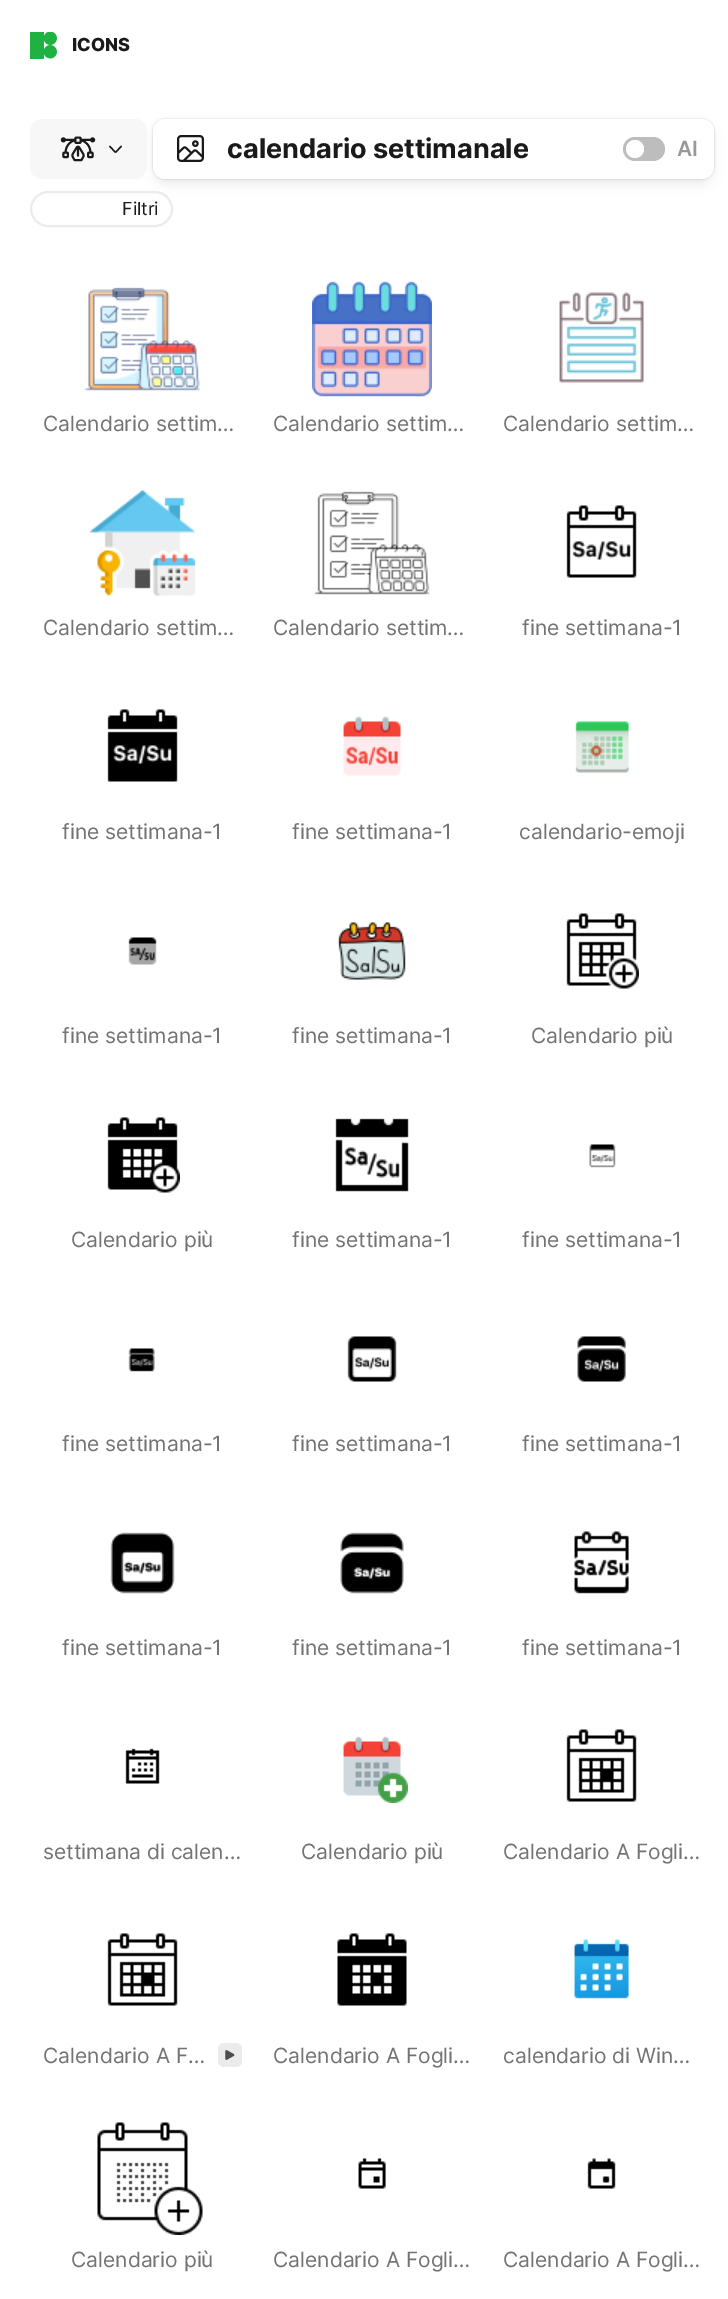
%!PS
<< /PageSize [728 2299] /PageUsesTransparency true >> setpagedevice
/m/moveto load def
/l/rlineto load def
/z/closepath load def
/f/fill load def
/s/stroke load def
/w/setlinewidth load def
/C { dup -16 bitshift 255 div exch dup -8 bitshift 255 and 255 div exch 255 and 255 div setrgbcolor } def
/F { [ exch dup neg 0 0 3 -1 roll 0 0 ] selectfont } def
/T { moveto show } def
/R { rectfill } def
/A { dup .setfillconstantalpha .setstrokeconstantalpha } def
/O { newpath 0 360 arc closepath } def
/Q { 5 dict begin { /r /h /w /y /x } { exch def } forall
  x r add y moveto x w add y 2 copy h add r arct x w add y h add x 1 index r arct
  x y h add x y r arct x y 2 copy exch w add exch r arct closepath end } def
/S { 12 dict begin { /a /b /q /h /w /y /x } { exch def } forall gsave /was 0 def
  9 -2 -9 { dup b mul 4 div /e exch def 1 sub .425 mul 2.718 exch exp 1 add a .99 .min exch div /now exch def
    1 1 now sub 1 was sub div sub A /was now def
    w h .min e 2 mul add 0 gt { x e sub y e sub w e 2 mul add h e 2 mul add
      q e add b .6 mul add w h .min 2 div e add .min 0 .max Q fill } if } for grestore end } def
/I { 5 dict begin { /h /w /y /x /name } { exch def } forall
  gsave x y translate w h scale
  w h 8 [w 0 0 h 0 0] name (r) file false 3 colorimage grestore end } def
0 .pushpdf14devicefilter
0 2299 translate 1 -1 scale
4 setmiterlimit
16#FFFFFF C
0 0 728 2299 R
(1.rgb) 30 32 27 27 I
/Inter-ExtraBold 18 F
16#1A1A1A C
(ICONS) 72 51 T
16#EBEBEB C
2 w
31 192 141 34 17 Q s
16#606060 C
156 128 555 54 9 6 .15 S
16#F7F7F7 C
30 119 117 60 12 Q f
(2.rgb) 60 136 36 26 I
16#1A1A1A C
110 145.5 m 6 6.5 l -1 1 l -6 -6.5 l z f
115 152 m 6 -6.5 l 1 1 l -6 6.5 l z f
16#606060 C
153 119 561 60 12 1 .31 S
16#FFFFFF C
153 119 561 60 12 Q f
(3.rgb) 177 135 27 27 I
/Inter-Bold 27 F
16#1A1A1A C
(calendario settimanale) 227 158 T
16#BDBDBD C
623 137 42 24 12 Q f
16#FFFFFF C
635 149 9 O f
/Inter-SemiBold 21 F
16#999999 C
(AI) 677 156 T
/Inter-Regular 18 F
16#1A1A1A C
(Filtri) 122 215 T
(4.rgb) 85 287 115 104 I
/Inter-Regular 21 F
16#737373 C
(Calendario settim…) 43 431 T
(5.rgb) 312 281 120 116 I
(Calendario settim…) 273 431 T
(6.rgb) 559 292 85 91 I
(Calendario settim…) 503 431 T
(7.rgb) 89 490 107 106 I
(Calendario settim…) 43 635 T
(8.rgb) 314 491 116 104 I
(Calendario settim…) 273 635 T
(9.rgb) 566 505 71 73 I
(fine settimana-1) 522 635 T
(10.rgb) 107 709 71 73 I
(fine settimana-1) 62 839 T
(11.rgb) 343 716 58 60 I
(fine settimana-1) 292 839 T
(12.rgb) 575 721 54 52 I
(calendario-emoji) 519 839 T
(13.rgb) 128 937 29 28 I
(fine settimana-1) 62 1043 T
(14.rgb) 337 922 69 58 I
(fine settimana-1) 292 1043 T
(15.rgb) 566 913 73 76 I
(Calendario più) 531 1043 T
(16.rgb) 107 1117 73 76 I
(Calendario più) 71 1247 T
(17.rgb) 335 1118 74 74 I
(fine settimana-1) 292 1247 T
(18.rgb) 589 1144 27 24 I
(fine settimana-1) 522 1247 T
(19.rgb) 128 1348 27 24 I
(fine settimana-1) 62 1451 T
(20.rgb) 347 1336 50 46 I
(fine settimana-1) 292 1451 T
(21.rgb) 577 1336 49 46 I
(fine settimana-1) 522 1451 T
(22.rgb) 110 1532 65 62 I
(fine settimana-1) 62 1655 T
(23.rgb) 340 1532 64 62 I
(fine settimana-1) 292 1655 T
(24.rgb) 574 1531 55 63 I
(fine settimana-1) 522 1655 T
(25.rgb) 125 1748 35 36 I
(settimana di calen…) 43 1859 T
(26.rgb) 343 1736 65 67 I
(Calendario più) 301 1859 T
(27.rgb) 566 1729 71 73 I
(Calendario A Fogli…) 503 1859 T
(28.rgb) 107 1933 71 73 I
(Calendario A F…) 43 2063 T
16#EBEBEB C
218 2043 24 24 6 Q f
(29.rgb) 225 2050 10 10 I
(30.rgb) 337 1933 70 73 I
16#737373 C
(Calendario A Fogli…) 273 2063 T
(31.rgb) 574 1939 55 60 I
(calendario di Win…) 503 2063 T
(32.rgb) 97 2122 106 113 I
(Calendario più) 71 2267 T
(33.rgb) 358 2158 28 31 I
(Calendario A Fogli…) 273 2267 T
(34.rgb) 587 2158 29 31 I
(Calendario A Fogli…) 503 2267 T
.poppdf14devicefilter showpage
